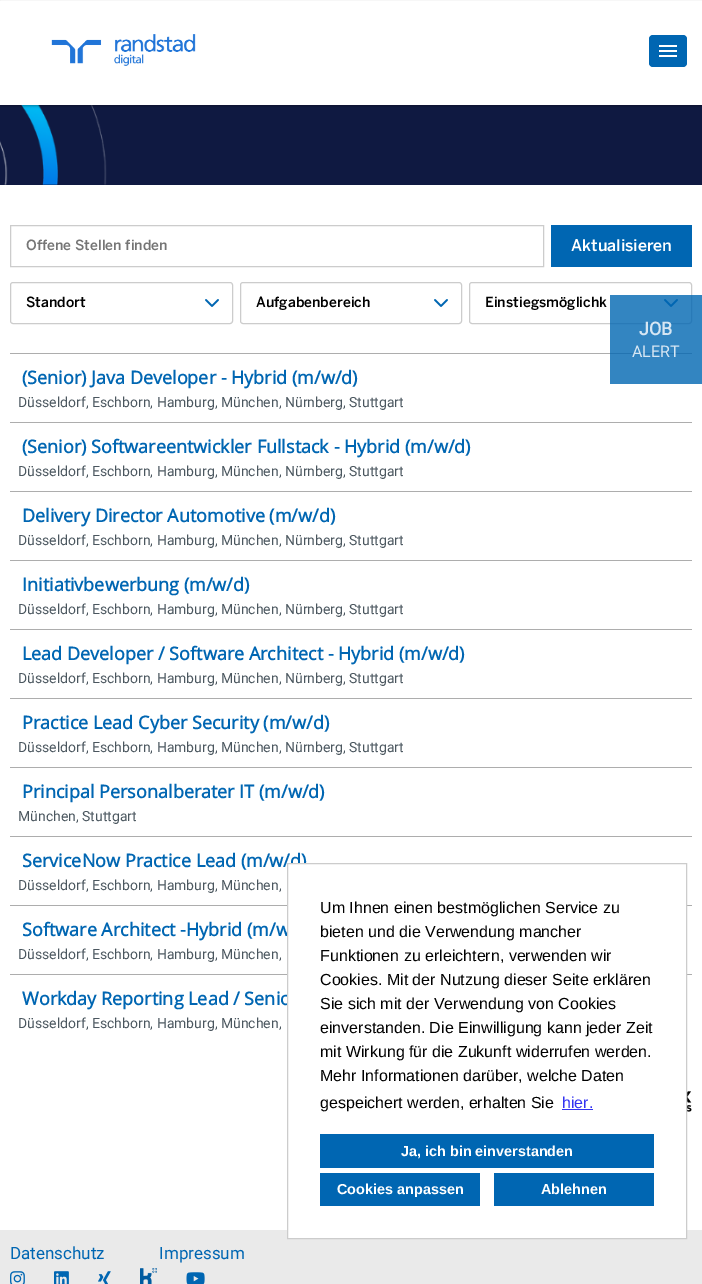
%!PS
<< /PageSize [702 1284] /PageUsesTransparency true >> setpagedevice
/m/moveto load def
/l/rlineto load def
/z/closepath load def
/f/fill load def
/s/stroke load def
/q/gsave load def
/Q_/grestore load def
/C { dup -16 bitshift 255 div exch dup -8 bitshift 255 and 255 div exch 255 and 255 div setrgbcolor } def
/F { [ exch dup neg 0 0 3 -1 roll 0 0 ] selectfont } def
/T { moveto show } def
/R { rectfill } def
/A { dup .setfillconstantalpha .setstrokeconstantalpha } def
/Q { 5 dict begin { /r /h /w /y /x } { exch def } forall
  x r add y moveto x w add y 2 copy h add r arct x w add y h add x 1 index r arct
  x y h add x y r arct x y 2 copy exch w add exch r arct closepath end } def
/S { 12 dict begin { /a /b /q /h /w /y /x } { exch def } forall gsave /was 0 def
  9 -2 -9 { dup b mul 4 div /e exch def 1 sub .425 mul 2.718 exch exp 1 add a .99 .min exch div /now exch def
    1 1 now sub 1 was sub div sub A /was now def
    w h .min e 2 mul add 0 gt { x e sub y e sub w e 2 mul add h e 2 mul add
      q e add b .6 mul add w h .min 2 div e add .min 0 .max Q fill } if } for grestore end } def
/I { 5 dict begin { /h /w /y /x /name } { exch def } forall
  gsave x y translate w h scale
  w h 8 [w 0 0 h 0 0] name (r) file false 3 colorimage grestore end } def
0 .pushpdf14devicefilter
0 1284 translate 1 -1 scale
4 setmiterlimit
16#FFFFFF C
0 0 702 1284 R
(2.rgb) 0 105 702 80 I
0.08 A
16#000000 C
-.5 -.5 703 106 rectstroke
1 A
0 2 702 105 0 1 .16 S
16#FFFFFF C
0 1 702 104 R
(1.rgb) 51 34 145 32 I
16#0066B2 C
649 35 38 32 4 Q f
16#FFFFFF C
659 45 18 2 R
659 50 18 2 R
659 55 18 2 R
16#CCCCCC C
10.5 225.5 533 41 rectstroke
/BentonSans-Medium 14 F
16#757575 C
(Offene Stellen finden) 26 250 T
16#0066B2 C
551 225 141 42 R
/BentonSans-Medium 16 F
16#FFFFFF C
(Aktualisieren) 571 251 T
16#CCCCCC C
10.5 282.5 222 41 2.5 Q s
/BentonSans-Medium 14 F
16#000000 C
(Standort) 26 307 T
(3.rgb) 205 299 14 8 I
16#CCCCCC C
240.5 282.5 221 41 2.5 Q s
16#000000 C
(Aufgabenbereich) 256 307 T
(3.rgb) 434 299 14 8 I
16#CCCCCC C
469.5 282.5 222 41 2.5 Q s
16#000000 C
(Einstiegsmöglichk) 485 307 T
(3.rgb) 664 299 14 8 I
16#ADADAD C
10 353 682 1 R
0.8 A
16#0066B2 C
610 295 92 89 R
/Roboto-Bold 18 F
1 A
16#D6E6F3 C
(JOB) 639 335 T
/Roboto-Regular 16 F
(ALERT) 632 357 T
/OpenSans-Bold 18 F
16#0066B2 C
(\(Senior\) Java Developer - Hybrid \(m/w/d\)) 22 384 T
/Roboto-Regular 14 F
16#4B575F C
(Düsseldorf, Eschborn, Hamburg, München, Nürnberg, Stuttgart) 18 407 T
16#ADADAD C
10 422 682 1 R
/OpenSans-Bold 18 F
16#0066B2 C
(\(Senior\) Softwareentwickler Fullstack - Hybrid \(m/w/d\)) 22 453 T
/Roboto-Regular 14 F
16#4B575F C
(Düsseldorf, Eschborn, Hamburg, München, Nürnberg, Stuttgart) 18 476 T
16#ADADAD C
10 491 682 1 R
/OpenSans-Bold 18 F
16#0066B2 C
(Delivery Director Automotive \(m/w/d\)) 22 522 T
/Roboto-Regular 14 F
16#4B575F C
(Düsseldorf, Eschborn, Hamburg, München, Nürnberg, Stuttgart) 18 545 T
16#ADADAD C
10 560 682 1 R
/OpenSans-Bold 18 F
16#0066B2 C
(Initiativbewerbung \(m/w/d\)) 22 591 T
/Roboto-Regular 14 F
16#4B575F C
(Düsseldorf, Eschborn, Hamburg, München, Nürnberg, Stuttgart) 18 614 T
16#ADADAD C
10 629 682 1 R
/OpenSans-Bold 18 F
16#0066B2 C
(Lead Developer / Software Architect - Hybrid \(m/w/d\)) 22 660 T
/Roboto-Regular 14 F
16#4B575F C
(Düsseldorf, Eschborn, Hamburg, München, Nürnberg, Stuttgart) 18 683 T
16#ADADAD C
10 698 682 1 R
/OpenSans-Bold 18 F
16#0066B2 C
(Practice Lead Cyber Security \(m/w/d\)) 22 729 T
/Roboto-Regular 14 F
16#4B575F C
(Düsseldorf, Eschborn, Hamburg, München, Nürnberg, Stuttgart) 18 752 T
16#ADADAD C
10 767 682 1 R
/OpenSans-Bold 18 F
16#0066B2 C
(Principal Personalberater IT \(m/w/d\)) 22 798 T
/Roboto-Regular 14 F
16#4B575F C
(München, Stuttgart) 18 821 T
16#ADADAD C
10 836 682 1 R
/OpenSans-Bold 18 F
16#0066B2 C
(ServiceNow Practice Lead \(m/w/d\)) 22 867 T
/Roboto-Regular 14 F
16#4B575F C
(Düsseldorf, Eschborn, Hamburg, München,) 18 890 T
16#ADADAD C
10 905 682 1 R
/OpenSans-Bold 18 F
16#0066B2 C
(Software Architect -Hybrid \(m/w) 22 936 T
/Roboto-Regular 14 F
16#4B575F C
(Düsseldorf, Eschborn, Hamburg, München,) 18 959 T
16#ADADAD C
10 974 682 1 R
/OpenSans-Bold 18 F
16#0066B2 C
(Workday Reporting Lead / Senio) 22 1005 T
/Roboto-Regular 14 F
16#4B575F C
(Düsseldorf, Eschborn, Hamburg, München,) 18 1028 T
(4.rgb) 687 1091 5 21 I
16#EAEAEA C
0 1230 702 54 R
/Roboto-Regular 17 F
16#0066B2 C
(Datenschutz) 10 1259 T
(Impressum) 159 1259 T
(5.rgb) 10 1271 15 13 I
(6.rgb) 54 1271 15 13 I
(7.rgb) 98 1271 13 13 I
(8.rgb) 140 1268 17 16 I
(9.rgb) 186 1272 19 12 I
16#FFFFFF C
287.5 863.5 m 399 0 l 0 375 l -399 0 l z q f Q_
16#CCCCCC C
s
/LiberationSans-Regular 16 F
16#000000 C
(Um Ihnen einen bestmöglichen Service zu) 320 913 T
(bieten und die Verwendung mancher) 320 937 T
(Funktionen zu erleichtern, verwenden wir) 320 961 T
(Cookies. Mit der Nutzung dieser Seite erklären) 320 985 T
(Sie sich mit der Verwendung von Cookies) 320 1009 T
(einverstanden. Die Einwilligung kann jeder Zeit) 320 1033 T
(mit Wirkung für die Zukunft widerrufen werden.) 320 1057 T
(Mehr Informationen darüber, welche Daten) 320 1081 T
(gespeichert werden, erhalten Sie) 320 1108 T
16#3333F1 C
(hier.) 562 1108 T
562 1109 31 1 R
16#0066B2 C
320 1134 334 34 R
/LiberationSans-Bold 14.4 F
16#FFFFFF C
(Ja, ich bin einverstanden) 401 1156 T
16#0066B2 C
320 1173 160 33 R
16#FFFFFF C
(Cookies anpassen) 337 1194 T
16#0066B2 C
494 1173 160 33 R
16#FFFFFF C
(Ablehnen) 541 1194 T
.poppdf14devicefilter showpage
